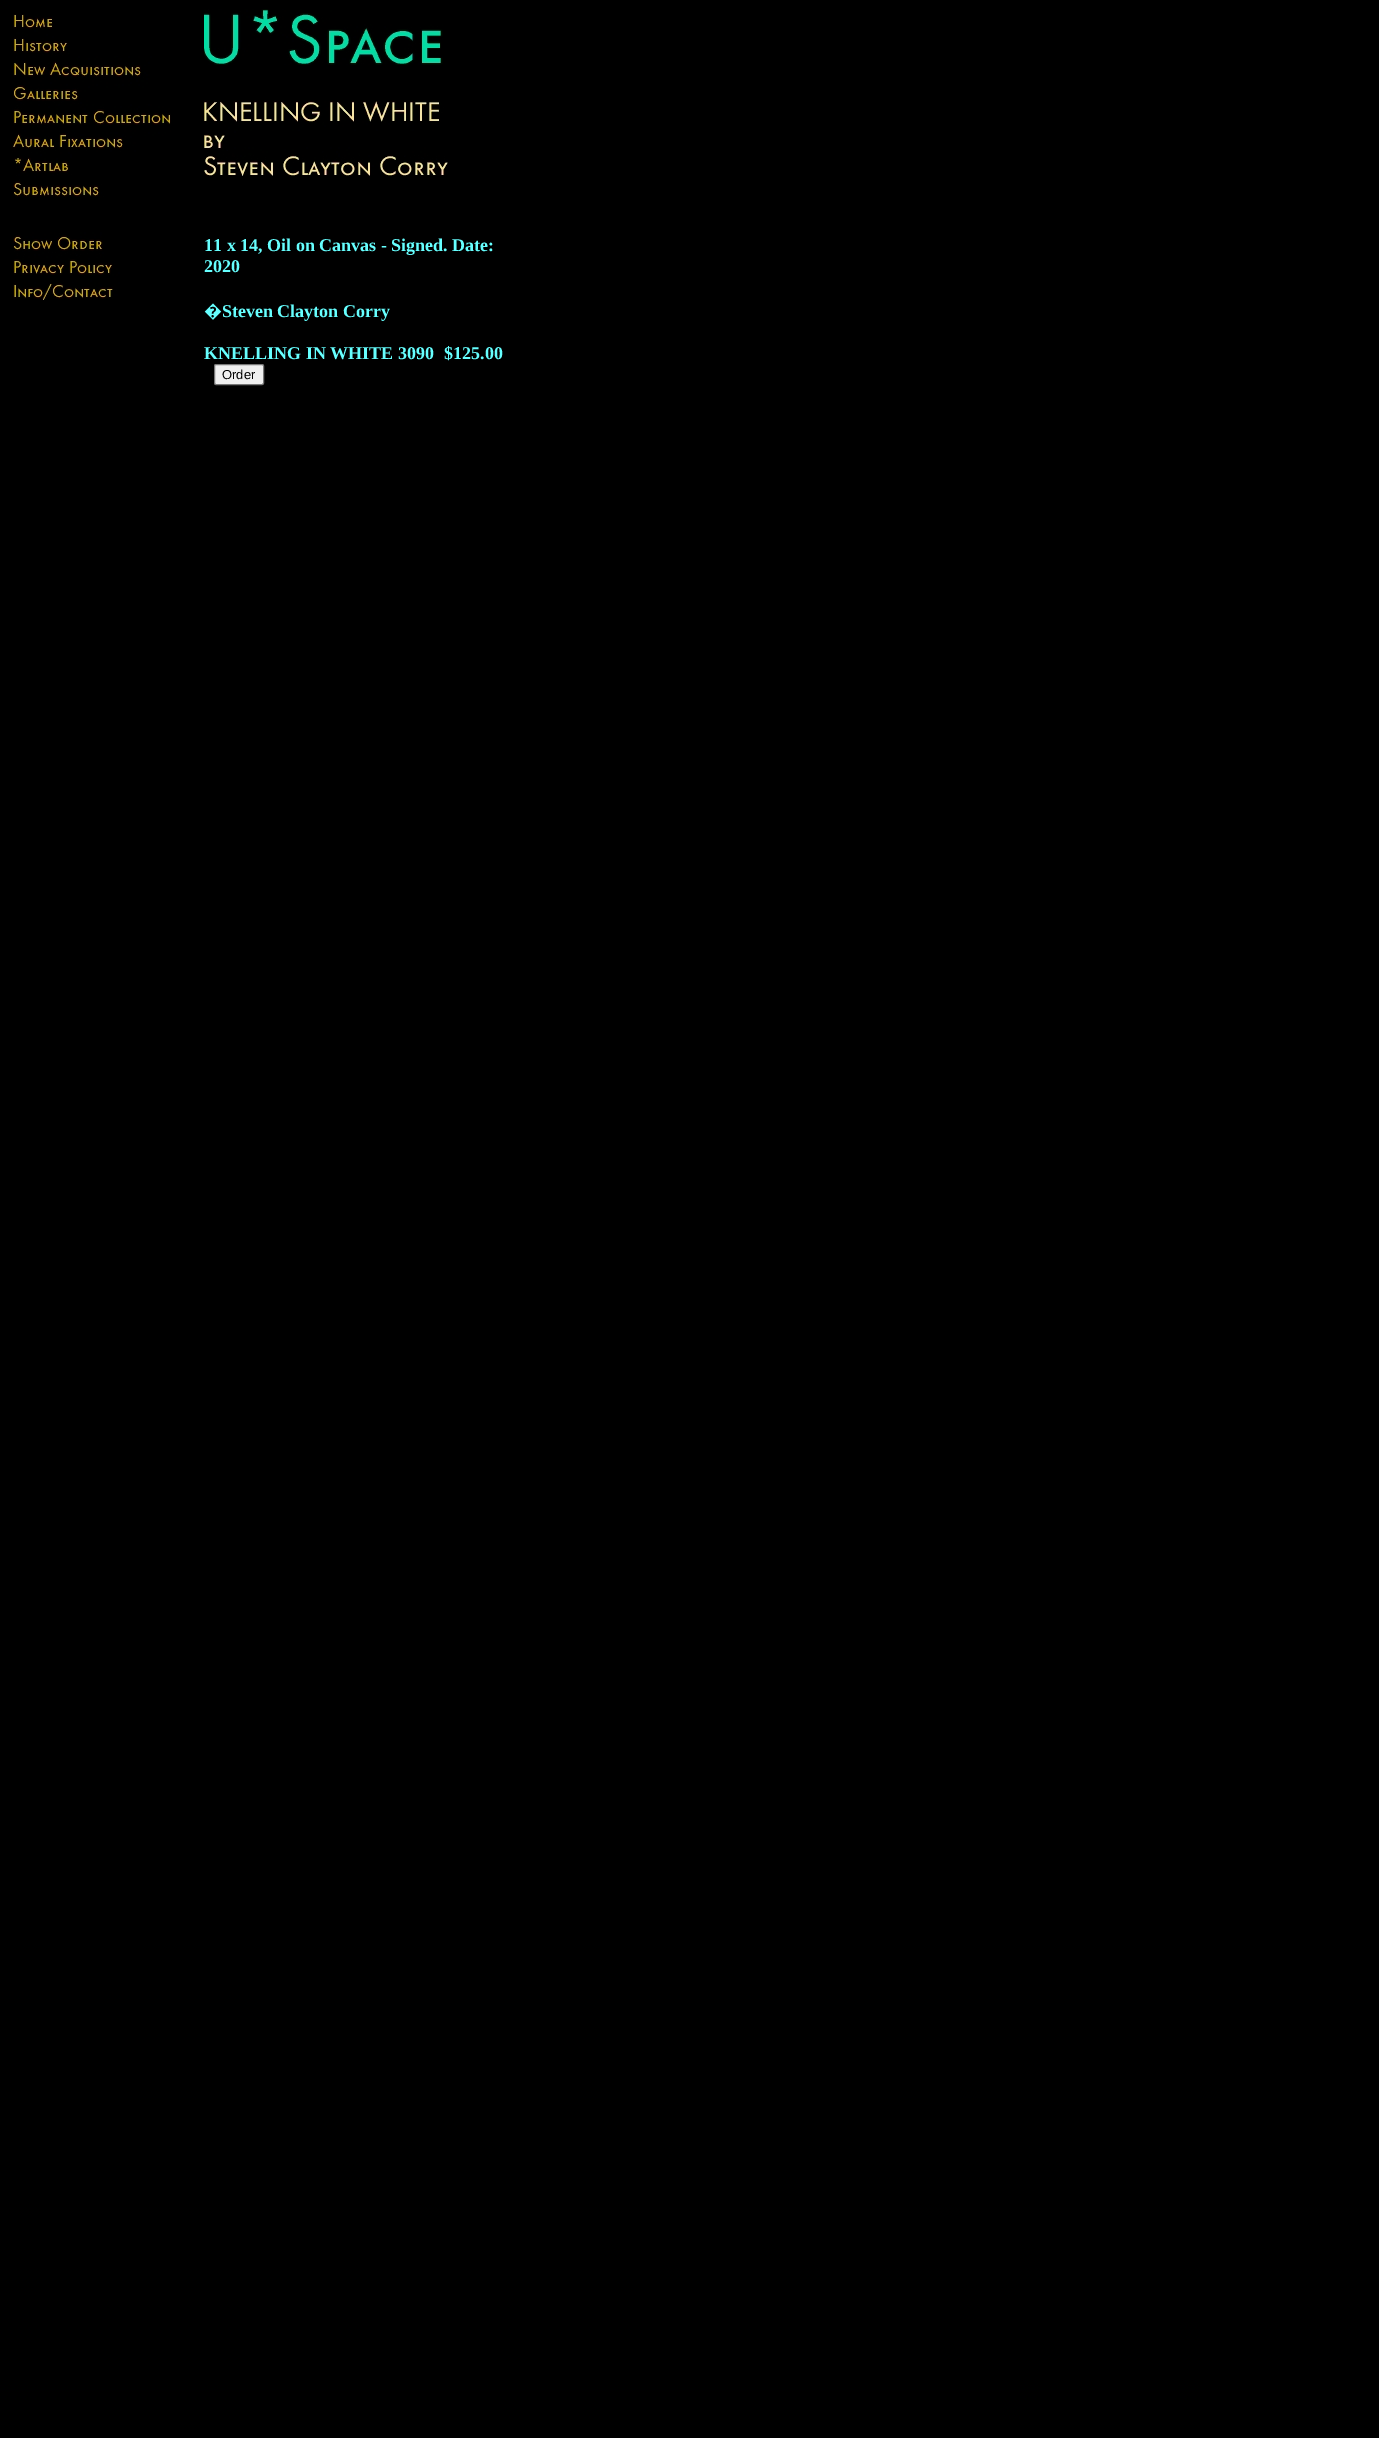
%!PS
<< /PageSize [1379 2438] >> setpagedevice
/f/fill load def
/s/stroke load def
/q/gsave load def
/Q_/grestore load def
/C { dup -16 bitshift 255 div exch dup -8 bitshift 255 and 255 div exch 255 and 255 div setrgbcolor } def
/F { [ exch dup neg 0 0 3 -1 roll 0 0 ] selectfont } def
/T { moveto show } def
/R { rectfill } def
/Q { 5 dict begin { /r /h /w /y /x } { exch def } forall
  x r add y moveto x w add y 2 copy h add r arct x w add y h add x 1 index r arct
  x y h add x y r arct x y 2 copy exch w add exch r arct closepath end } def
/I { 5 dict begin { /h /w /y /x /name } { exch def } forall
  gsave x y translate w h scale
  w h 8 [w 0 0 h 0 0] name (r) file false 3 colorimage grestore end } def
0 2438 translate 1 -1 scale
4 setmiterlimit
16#000000 C
0 0 1379 2438 R
(1.rgb) 12 14 159 286 I
(2.rgb) 204 9 239 56 I
(3.rgb) 204 101 244 75 I
/LiberationSerif-Bold 18 F
16#66FFFF C
(11 x 14, Oil on Canvas - Signed. Date:) 204 251 T
(2020) 204 272 T
/NotoSans-Bold 18 F
(�) 204 317 T
/LiberationSerif-Bold 18 F
(Steven Clayton Corry) 222 317 T
(KNELLING IN WHITE 3090) 204 359 T
($125.00) 444 359 T
16#EFEFEF C
214.5 364.5 49 20 1.5 Q q f Q_
16#767676 C
s
/LiberationSans-Regular 13 F
16#000000 C
(Order) 222 379 T
showpage
